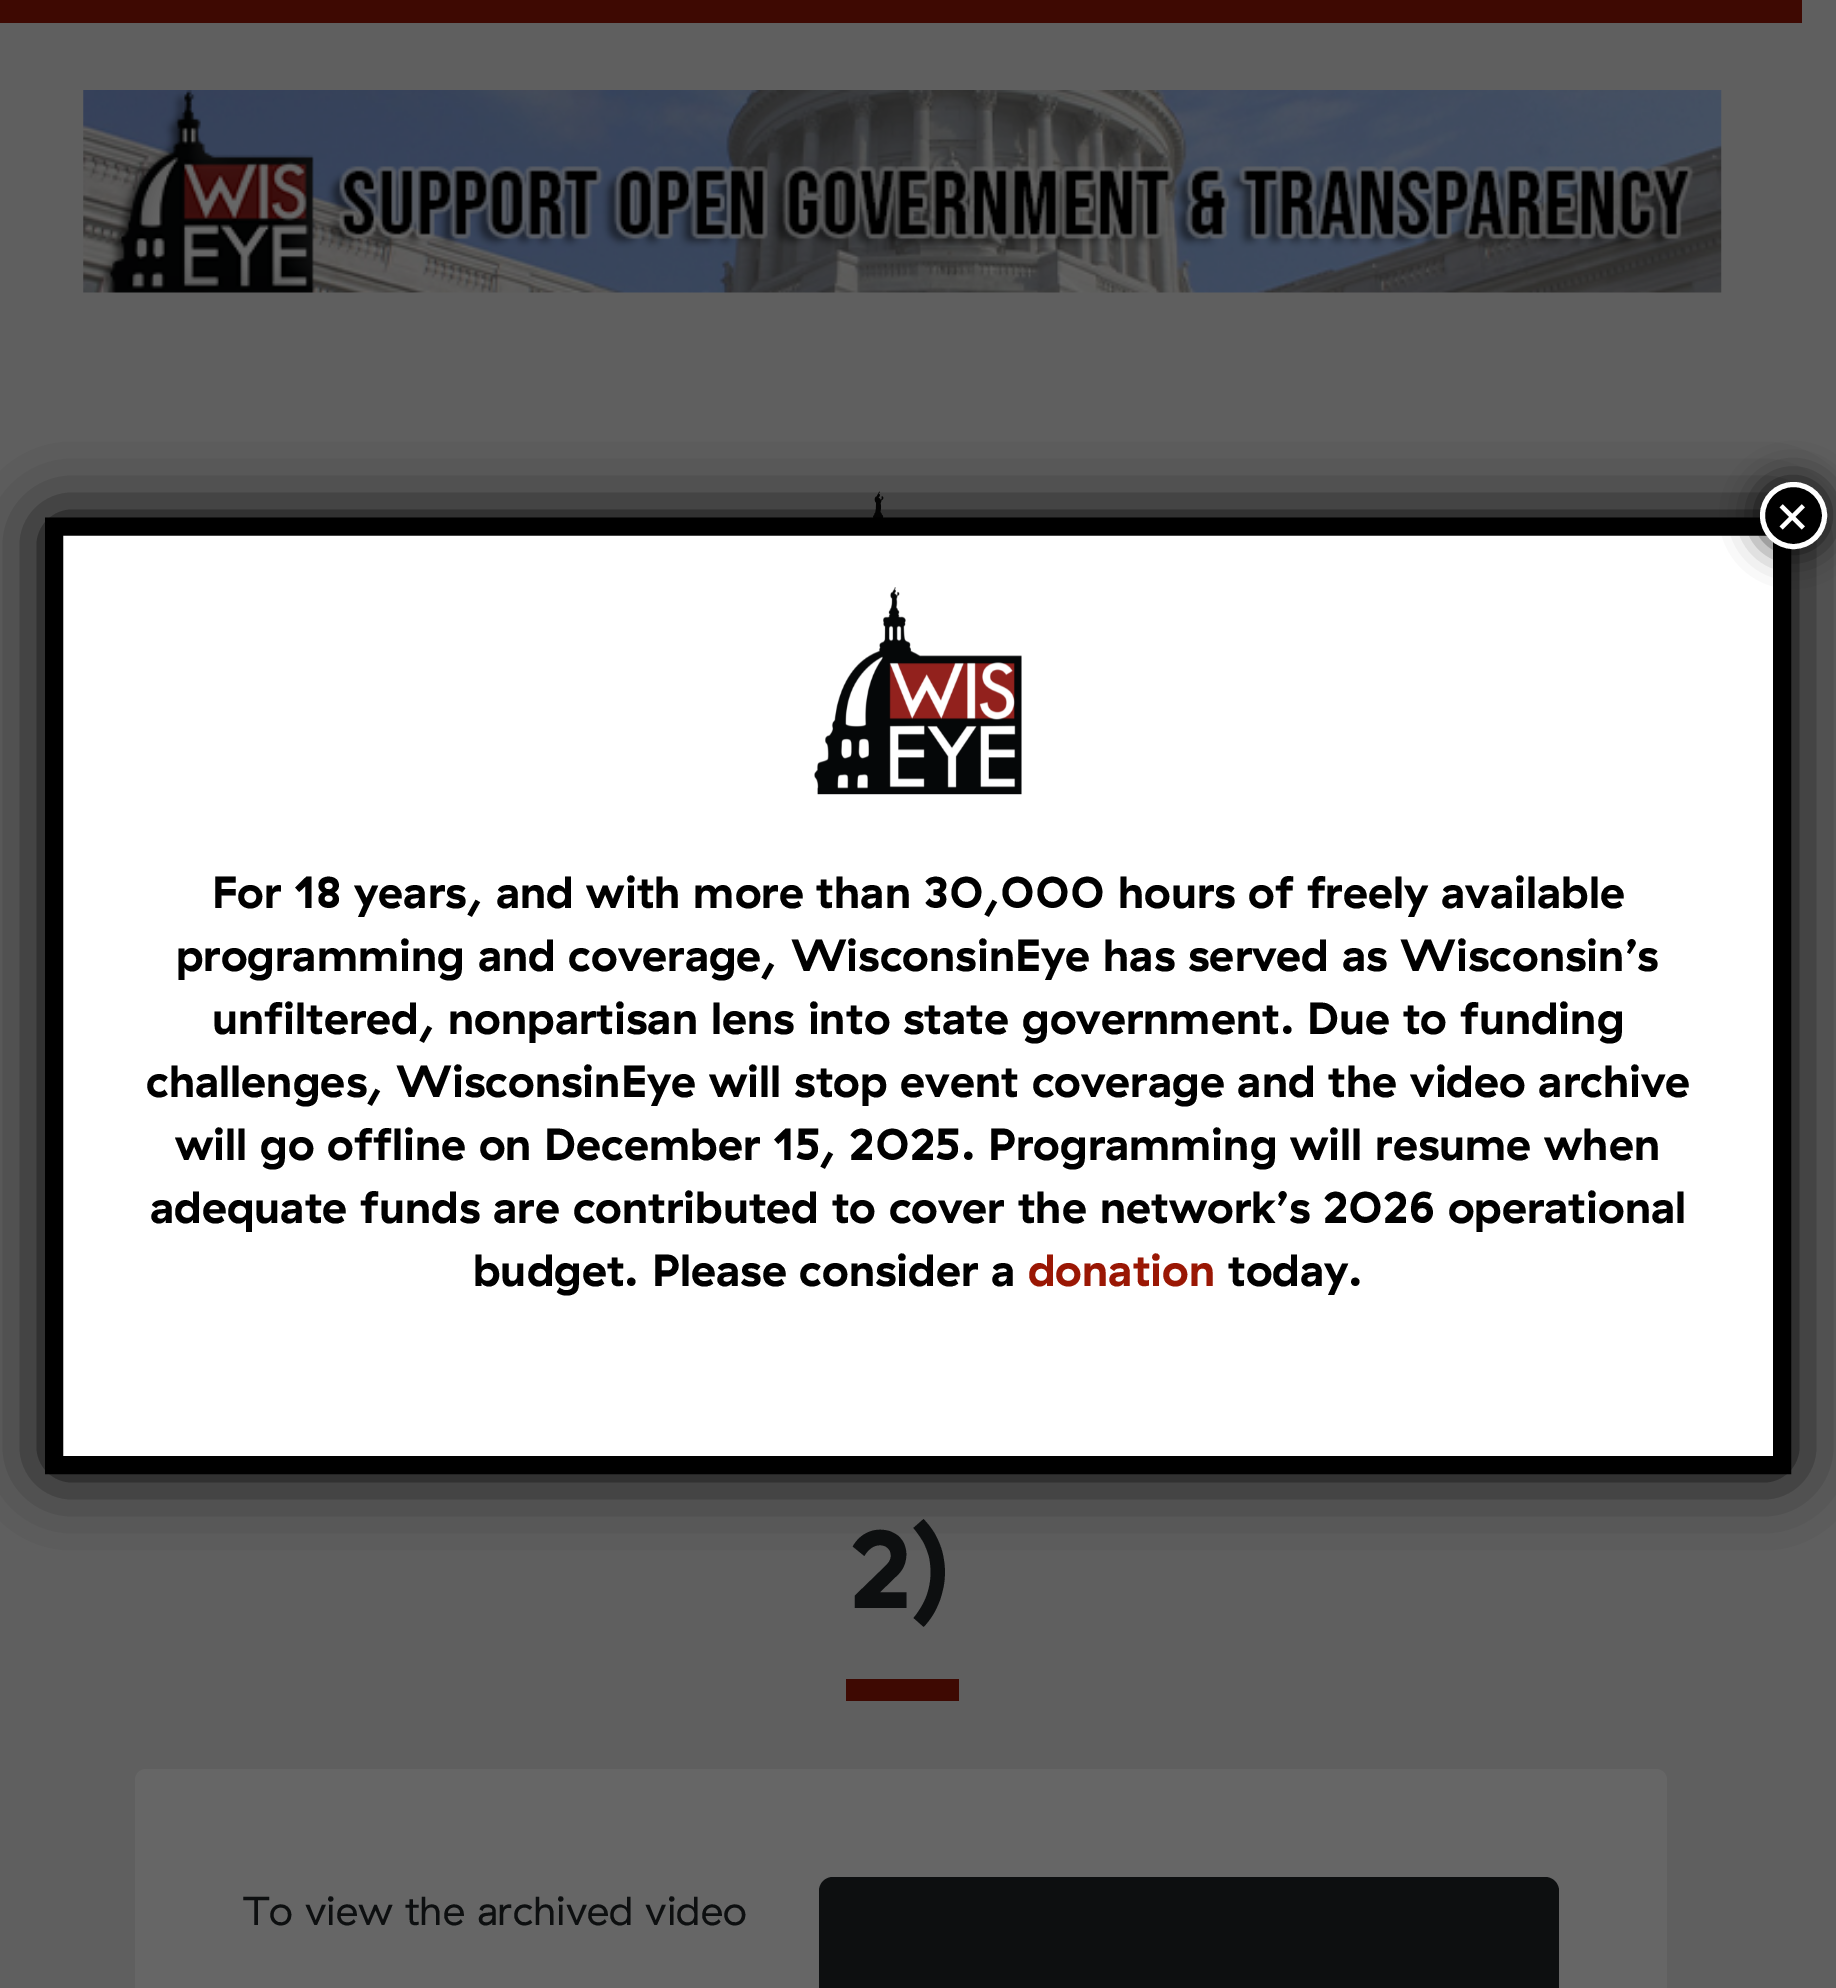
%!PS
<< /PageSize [1836 1988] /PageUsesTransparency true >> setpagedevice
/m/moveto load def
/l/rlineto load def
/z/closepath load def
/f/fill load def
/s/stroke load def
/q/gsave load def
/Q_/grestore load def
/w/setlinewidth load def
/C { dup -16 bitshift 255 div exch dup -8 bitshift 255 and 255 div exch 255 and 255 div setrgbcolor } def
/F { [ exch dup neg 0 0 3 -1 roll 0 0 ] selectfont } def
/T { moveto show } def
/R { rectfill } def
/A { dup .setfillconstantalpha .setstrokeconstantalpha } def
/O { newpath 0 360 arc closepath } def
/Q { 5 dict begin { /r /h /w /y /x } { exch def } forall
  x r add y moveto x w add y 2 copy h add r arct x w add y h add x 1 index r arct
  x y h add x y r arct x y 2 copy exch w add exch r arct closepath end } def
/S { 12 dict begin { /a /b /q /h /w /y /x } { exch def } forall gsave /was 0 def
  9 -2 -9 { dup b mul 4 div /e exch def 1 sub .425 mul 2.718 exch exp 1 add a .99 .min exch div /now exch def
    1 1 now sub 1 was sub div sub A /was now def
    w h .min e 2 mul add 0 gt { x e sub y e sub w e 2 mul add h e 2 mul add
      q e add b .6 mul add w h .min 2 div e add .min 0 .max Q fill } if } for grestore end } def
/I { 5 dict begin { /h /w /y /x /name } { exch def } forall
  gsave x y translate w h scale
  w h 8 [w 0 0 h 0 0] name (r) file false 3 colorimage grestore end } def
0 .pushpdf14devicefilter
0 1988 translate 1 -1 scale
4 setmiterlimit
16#5F5F5F C
0 0 1836 1988 R
(3.rgb) 873 491 11 27 I
16#020202 C
45 518 1746 956 7 34 1 S
16#FFFFFF C
63 535 1710 921 R
16#000000 C
18 w
54 526.5 m 1728 0 l 0 938.5 l -1728 0 l z s
16#020202 C
1757 479 72 72 36 17 .75 S
16#000000 C
1793.5 515.5 31 O q f Q_
16#FFFFFF C
5 w
s
/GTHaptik-Regular 54 F
(×) 1775 534 T
(1.rgb) 814 587 208 208 I
/GTHaptik-Bold 45 F
16#000000 C
(For 18 years, and with more than 30,000 hours of freely available) 212 908 T
(programming and coverage, WisconsinEye has served as Wisconsin’s) 176 971 T
(unfiltered, nonpartisan lens into state government. Due to funding) 212 1034 T
(challenges, WisconsinEye will stop event coverage and the video archive) 146 1097 T
(will go offline on December 15, 2025. Programming will resume when) 175 1160 T
(adequate funds are contributed to cover the network’s 2026 operational) 150 1223 T
(budget. Please consider a) 473 1286 T
16#9A1704 C
(donation) 1028 1286 T
16#000000 C
(today.) 1228 1286 T
16#3E0902 C
0 0 1802 23 R
(2.rgb) 83 90 1639 203 I
/GTHaptik-Bold 112 F
16#0D0F10 C
(2\)) 849 1608 T
16#3E0902 C
846 1679 113 22 R
16#666666 C
135 1769 1532 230 11 Q f
/GTHaptik-Regular 40.5 F
16#0D0F10 C
(To view the archived video) 243 1925 T
819 1877 740 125 14 Q f
.poppdf14devicefilter showpage
